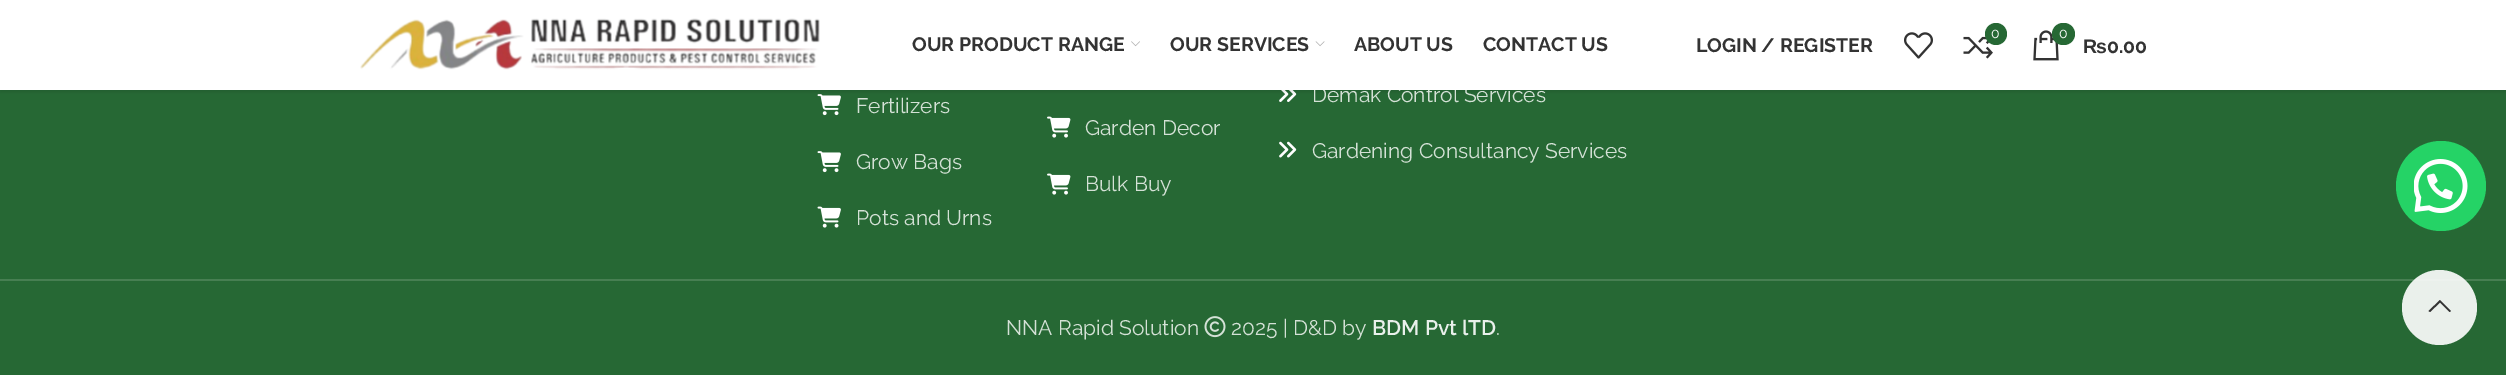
%!PS
<< /PageSize [2506 375] /PageUsesTransparency true >> setpagedevice
/m/moveto load def
/l/rlineto load def
/z/closepath load def
/f/fill load def
/C { dup -16 bitshift 255 div exch dup -8 bitshift 255 and 255 div exch 255 and 255 div setrgbcolor } def
/F { [ exch dup neg 0 0 3 -1 roll 0 0 ] selectfont } def
/T { moveto show } def
/R { rectfill } def
/A { dup .setfillconstantalpha .setstrokeconstantalpha } def
/O { newpath 0 360 arc closepath } def
/Q { 5 dict begin { /r /h /w /y /x } { exch def } forall
  x r add y moveto x w add y 2 copy h add r arct x w add y h add x 1 index r arct
  x y h add x y r arct x y 2 copy exch w add exch r arct closepath end } def
/S { 12 dict begin { /a /b /q /h /w /y /x } { exch def } forall gsave /was 0 def
  9 -2 -9 { dup b mul 4 div /e exch def 1 sub .425 mul 2.718 exch exp 1 add a .99 .min exch div /now exch def
    1 1 now sub 1 was sub div sub A /was now def
    w h .min e 2 mul add 0 gt { x e sub y e sub w e 2 mul add h e 2 mul add
      q e add b .6 mul add w h .min 2 div e add .min 0 .max Q fill } if } for grestore end } def
/I { 5 dict begin { /h /w /y /x /name } { exch def } forall
  gsave x y translate w h scale
  w h 8 [w 0 0 h 0 0] name (r) file false 3 colorimage grestore end } def
0 .pushpdf14devicefilter
0 375 translate 1 -1 scale
4 setmiterlimit
16#266834 C
0 0 2506 375 R
(7.rgb) 817 94 24 22 I
(10.rgb) 1279 90 18 12 I
16#000000 C
0 2 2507 90 0 2 .1 S
/Raleway-Regular 21 F
16#D4E1D6 C
(Demak Control Services) 1312 102 T
16#FFFFFF C
0 0 2506 90 R
(1.rgb) 360 18 460 52 I
/Raleway-Bold 19.5 F
16#333333 C
(OUR PRODUCT RANGE) 912 51 T
(2.rgb) 1131 41 9 6 I
(OUR SERVICES) 1170 51 T
(3.rgb) 1315 41 10 6 I
(ABOUT US) 1354 51 T
(CONTACT US) 1483 51 T
(LOGIN / REGISTER) 1696 52 T
(4.rgb) 1904 32 29 27 I
(5.rgb) 1963 33 30 26 I
16#266834 C
1996 34 11 O f
/Raleway-Regular 14 F
16#FFFFFF C
(0) 1991 38 T
(6.rgb) 2033 30 26 31 I
16#266834 C
2052 23 23 22 11 Q f
16#FFFFFF C
(0) 2059 38 T
/LiberationSans-Bold 19.5 F
16#333333 C
(₨) 2083 53 T
/Raleway-Bold 19.5 F
(0.00) 2107 53 T
/Raleway-Regular 21 F
16#D4E1D6 C
(Fertilizers) 856 113 T
(7.rgb) 817 151 24 22 I
(Grow Bags) 856 169 T
(8.rgb) 817 206 24 22 I
(Pots and Urns) 856 225 T
(9.rgb) 1047 116 24 22 I
(Garden Decor) 1085 135 T
(9.rgb) 1047 173 24 22 I
(Bulk Buy) 1085 191 T
(11.rgb) 1279 141 18 17 I
(Gardening Consultancy Services) 1312 158 T
16#477F52 C
0 279 2506 2 R
16#D4E1D6 C
(NNA Rapid Solution) 1006 335 T
(12.rgb) 1204 316 22 22 I
(2025 | D&D by) 1231 335 T
/Raleway-SemiBold 21 F
16#E9F0EB C
(BDM Pvt lTD) 1372 335 T
/Raleway-Regular 21 F
16#D4E1D6 C
(.) 1496 335 T
16#25D366 C
2441 186 45 O f
(13.rgb) 2414 159 54 54 I
0.9 A
16#FFFFFF C
2439.5 307.5 37.5 O f
1 A
16#333333 C
2449.5 312 m 1.5 -1 l -11 -11 l -11.5 11 l 1.5 1 l 10 -9.5 l z f
.poppdf14devicefilter showpage
